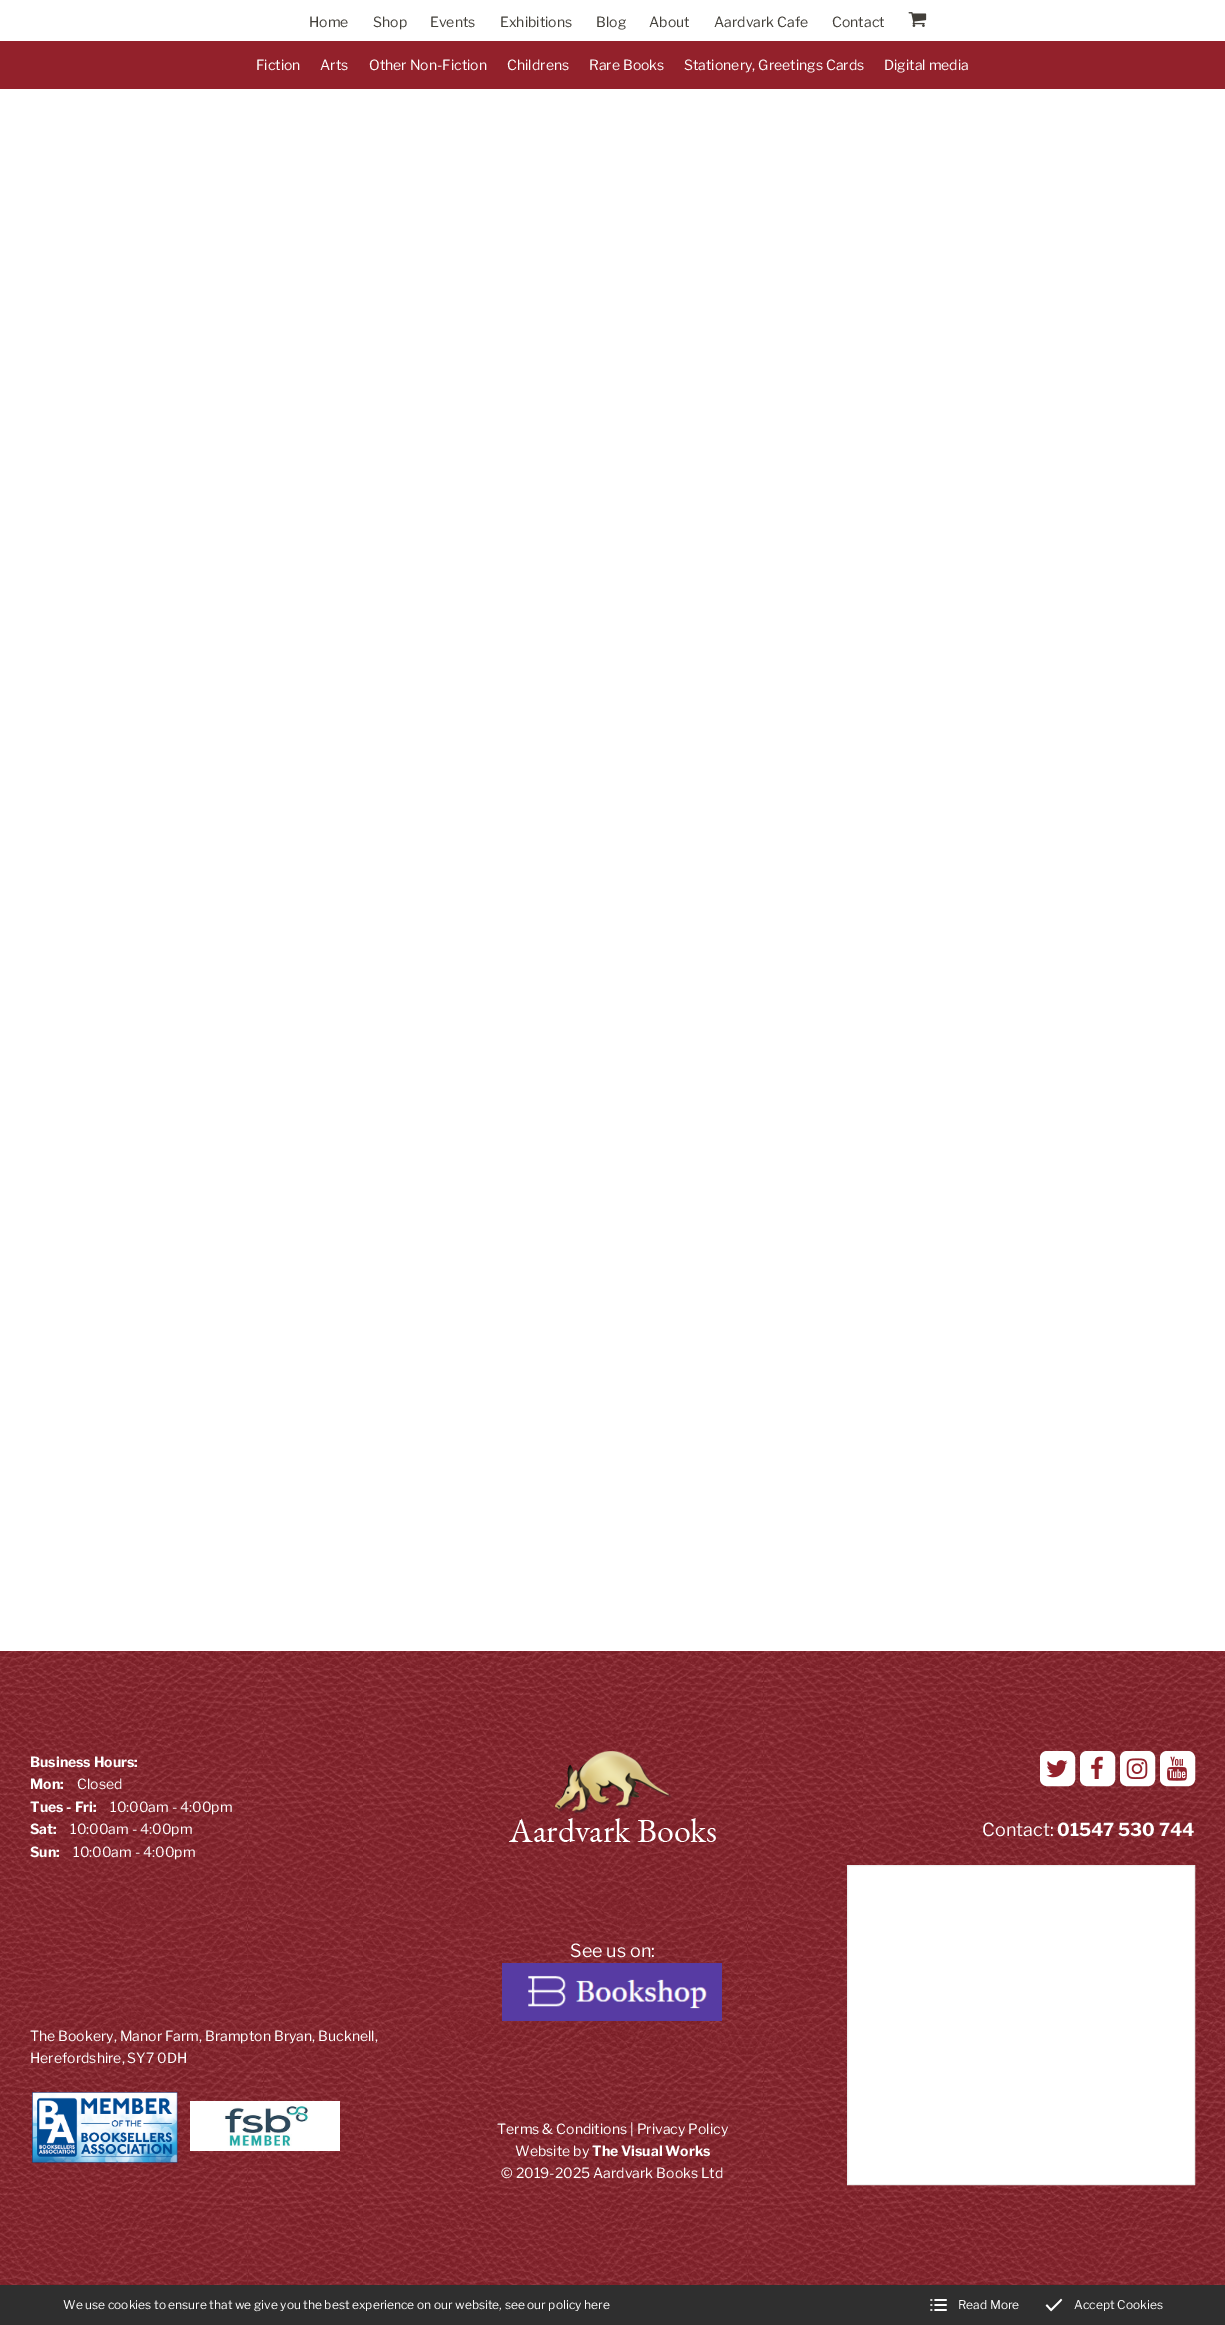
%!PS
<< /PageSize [1225 2325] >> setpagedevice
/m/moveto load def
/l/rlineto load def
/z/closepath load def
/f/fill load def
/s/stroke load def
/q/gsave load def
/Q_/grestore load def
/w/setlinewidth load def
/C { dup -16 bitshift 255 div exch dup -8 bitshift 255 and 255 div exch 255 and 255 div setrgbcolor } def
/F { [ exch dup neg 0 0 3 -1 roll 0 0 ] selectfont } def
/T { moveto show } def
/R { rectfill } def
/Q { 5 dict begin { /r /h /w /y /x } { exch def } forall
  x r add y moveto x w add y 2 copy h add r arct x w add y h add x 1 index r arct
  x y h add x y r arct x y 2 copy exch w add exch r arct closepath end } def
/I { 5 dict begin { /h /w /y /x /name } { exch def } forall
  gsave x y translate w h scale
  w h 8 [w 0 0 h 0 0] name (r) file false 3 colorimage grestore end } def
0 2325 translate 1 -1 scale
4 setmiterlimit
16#FFFFFF C
0 0 1225 2325 R
/LibreFranklin-Regular 14 F
16#43403A C
(Home) 309 27 T
(Shop) 373 27 T
(Events) 430 27 T
(Exhibitions) 500 27 T
(Blog) 596 27 T
(About) 649 27 T
(Aardvark Cafe) 714 27 T
(Contact) 832 27 T
(1.rgb) 908 12 19 15 I
16#93212B C
0 41 1225 48 R
16#FFFFFF C
(Fiction) 256 70 T
(Arts) 320 70 T
(Other Non-Fiction) 369 70 T
(Childrens) 507 70 T
(Rare Books) 589 70 T
(Stationery, Greetings Cards) 684 70 T
(Digital media) 884 70 T
16#93212B C
0 1651 1225 634 R
(2.rgb) 0 1651 1225 634 I
/LibreFranklin-Bold 14 F
16#FFFFFF C
(Business Hours:) 30 1767 T
(Mon:) 30 1789 T
/LibreFranklin-Regular 14 F
(Closed) 77 1789 T
/LibreFranklin-Bold 14 F
(Tues - Fri:) 30 1812 T
/LibreFranklin-Regular 14 F
(10:00am - 4:00pm) 110 1812 T
/LibreFranklin-Bold 14 F
(Sat:) 30 1834 T
/LibreFranklin-Regular 14 F
(10:00am - 4:00pm) 70 1834 T
/LibreFranklin-Bold 14 F
(Sun:) 30 1857 T
/LibreFranklin-Regular 14 F
(10:00am - 4:00pm) 73 1857 T
(The Bookery, Manor Farm, Brampton Bryan, Bucknell,) 30 2041 T
(Herefordshire, SY7 0DH) 30 2063 T
(3.rgb) 32 2092 146 71 I
(4.rgb) 190 2101 150 50 I
1041 1752 33 33 6 Q q f Q_
2 w
s
(5.rgb) 1046 1760 22 18 I
1081 1752 33 33 6 Q q f Q_
s
(6.rgb) 1091 1756 12 23 I
1121 1752 33 33 6 Q q f Q_
s
(7.rgb) 1126 1758 22 21 I
1161 1752 33 33 6 Q q f Q_
s
(8.rgb) 1167 1756 20 25 I
/LibreFranklin-Regular 18 F
(Contact:) 982 1836 T
/LibreFranklin-Bold 18 F
(01547 530 744) 1057 1836 T
847.5 1865.5 m 347 0 l 0 319 l -347 0 l z q f Q_
16#EEEEEE C
1 w
s
(9.rgb) 508 1751 208 91 I
/LibreFranklin-Regular 18 F
16#FFFFFF C
(See us on:) 570 1957 T
(10.rgb) 502 1963 220 58 I
/LibreFranklin-Regular 14 F
(Terms & Conditions | Privacy Policy) 497 2134 T
(Website by) 515 2156 T
/LibreFranklin-Bold 14 F
(The Visual Works) 592 2156 T
/LibreFranklin-Regular 14 F
(© 2019-2025 Aardvark Books Ltd) 501 2178 T
16#2F2F2F C
0 2285 1225 40 R
/LibreFranklin-Regular 12 F
16#FFFFFF C
(We use cookies to ensure that we give you the best experience on our website, see our policy here) 63 2309 T
(11.rgb) 930 2299 17 12 I
(Read More) 958 2309 T
(12.rgb) 1045 2298 18 14 I
(Accept Cookies) 1074 2309 T
showpage
